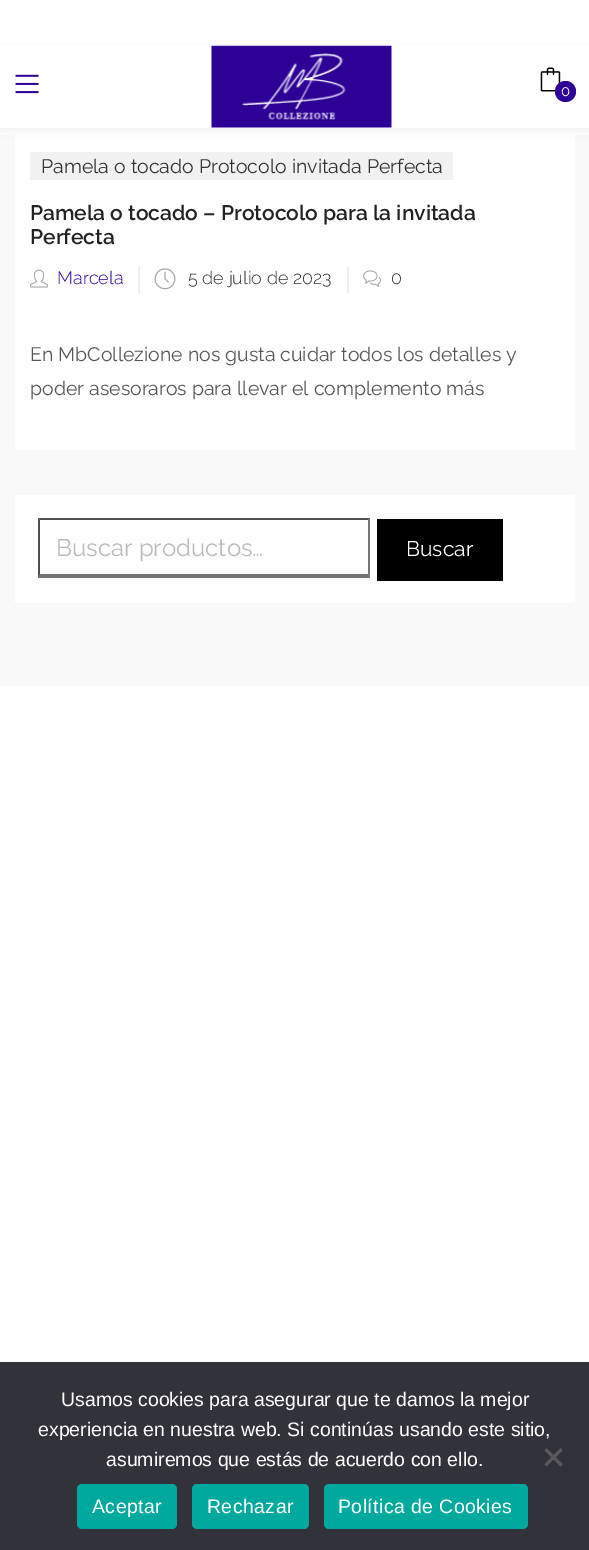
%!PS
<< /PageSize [589 1550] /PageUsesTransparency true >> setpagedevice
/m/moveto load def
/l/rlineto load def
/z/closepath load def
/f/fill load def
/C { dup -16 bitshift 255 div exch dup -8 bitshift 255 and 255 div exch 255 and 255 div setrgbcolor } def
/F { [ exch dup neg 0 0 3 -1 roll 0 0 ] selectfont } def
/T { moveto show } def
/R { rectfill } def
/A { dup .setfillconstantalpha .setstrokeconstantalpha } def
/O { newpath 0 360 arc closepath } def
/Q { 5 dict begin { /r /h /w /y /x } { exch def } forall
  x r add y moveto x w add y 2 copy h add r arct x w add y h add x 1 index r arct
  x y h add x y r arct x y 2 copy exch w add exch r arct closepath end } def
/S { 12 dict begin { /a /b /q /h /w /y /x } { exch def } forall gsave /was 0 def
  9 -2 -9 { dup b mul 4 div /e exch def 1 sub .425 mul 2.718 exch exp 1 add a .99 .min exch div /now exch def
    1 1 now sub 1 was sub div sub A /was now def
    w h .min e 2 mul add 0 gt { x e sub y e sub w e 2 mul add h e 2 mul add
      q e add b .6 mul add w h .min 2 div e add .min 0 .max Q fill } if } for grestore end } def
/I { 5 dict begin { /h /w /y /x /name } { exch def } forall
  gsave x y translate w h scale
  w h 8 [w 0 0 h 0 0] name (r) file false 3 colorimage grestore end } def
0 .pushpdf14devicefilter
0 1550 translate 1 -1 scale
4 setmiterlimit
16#FFFFFF C
0 0 589 1550 R
16#F9F9F9 C
0 135 589 551 R
16#FFFFFF C
15 135 560 315 R
16#000000 C
0 48 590 83 0 4.5 .06 S
16#FFFFFF C
0 45 589 83 R
(1.rgb) 15 74 24 20 I
(2.rgb) 211 45 181 83 I
(3.rgb) 540 67 21 25 I
16#2D0096 C
565.5 91.5 10.5 O f
/Raleway-Regular 15 F
16#FFFFFF C
(0) 561 96 T
16#F1F1F1 C
30 152 423 28 R
/Raleway-Regular 19.5 F
16#323232 C
(Pamela o tocado Protocolo invitada Perfecta) 41 173 T
/Raleway-SemiBold 21 F
16#222222 C
(Pamela o tocado – Protocolo para la invitada) 30 220 T
(Perfecta) 30 244 T
(4.rgb) 30 269 18 19 I
/Raleway-Light 18 F
16#2D0096 C
(Marcela) 57 284 T
16#EEEEEE C
138 267 2 26 R
(5.rgb) 154 268 22 22 I
16#323232 C
(5 de julio de 2023) 188 284 T
16#EEEEEE C
347 267 2 26 R
(6.rgb) 363 270 18 17 I
16#323232 C
(0) 391 284 T
/Raleway-Regular 19.5 F
16#555555 C
(En MbCollezione nos gusta cuidar todos los detalles y) 30 361 T
(poder asesoraros para llevar el complemento más) 30 395 T
16#FFFFFF C
15 495 560 108 R
16#4F4F4F C
38 518 m 332 0 l -2 2 l -328 0 l z f
16#767676 C
370 518 m 0 60 l -2 -4 l 0 -54 l z f
370 578 m -332 0 l 2 -4 l 328 0 l z f
16#4F4F4F C
38 578 m 0 -60 l 2 2 l 0 54 l z f
/Raleway-Regular 24 F
16#BBBBBB C
(Buscar productos…) 56 556 T
16#000000 C
377 519 126 62 R
/Raleway-Regular 21 F
16#FFFFFF C
(Buscar) 406 556 T
16#32323A C
0 1362 589 188 R
/LiberationSans-Regular 19.5 F
16#FFFFFF C
(Usamos cookies para asegurar que te damos la mejor) 61 1406 T
(experiencia en nuestra web. Si continúas usando este sitio,) 38 1436 T
(asumiremos que estás de acuerdo con ello.) 106 1466 T
16#59595D C
560.5 1448 m 2 2.5 l -16 16 l -2 -2.5 l z f
544.5 1450.5 m 2 -2.5 l 16 16 l -2 2.5 l z f
16#00A99D C
77 1484 100 45 5 Q f
16#FFFFFF C
92 1513 m .4 0 (Aceptar) ashow
16#00A99D C
192 1484 117 45 5 Q f
16#FFFFFF C
207 1513 m .4 0 (Rechazar) ashow
16#00A99D C
324 1484 204 45 5 Q f
16#FFFFFF C
338 1513 m .4 0 (Política de Cookies) ashow
.poppdf14devicefilter showpage
